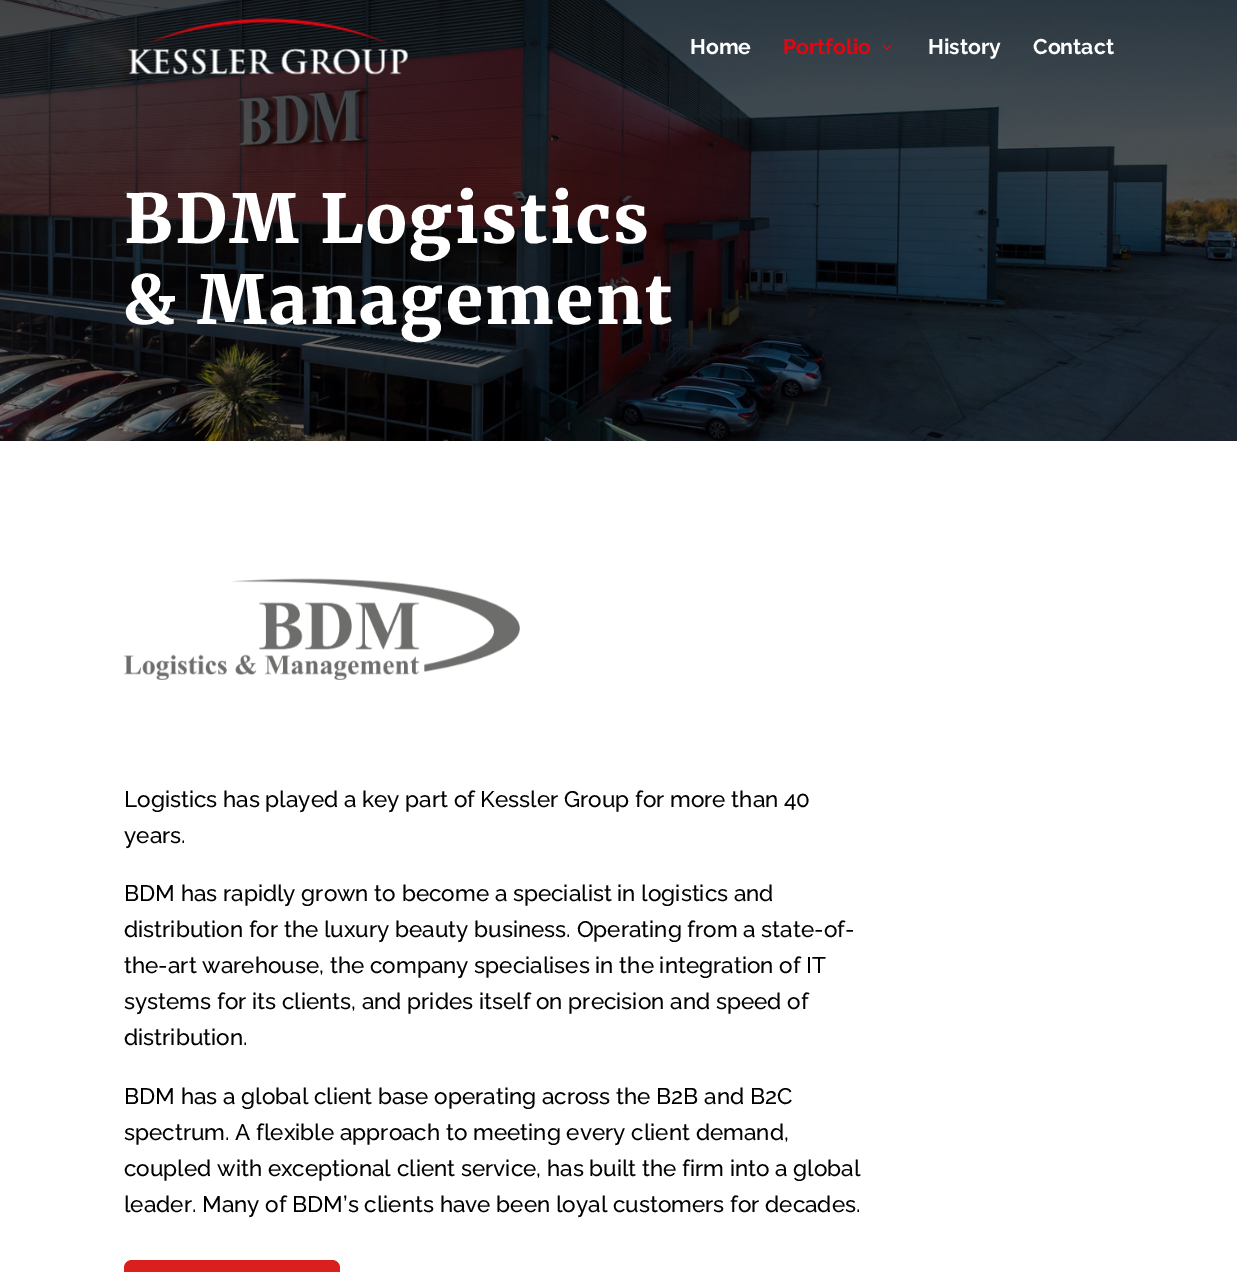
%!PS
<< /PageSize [1237 1272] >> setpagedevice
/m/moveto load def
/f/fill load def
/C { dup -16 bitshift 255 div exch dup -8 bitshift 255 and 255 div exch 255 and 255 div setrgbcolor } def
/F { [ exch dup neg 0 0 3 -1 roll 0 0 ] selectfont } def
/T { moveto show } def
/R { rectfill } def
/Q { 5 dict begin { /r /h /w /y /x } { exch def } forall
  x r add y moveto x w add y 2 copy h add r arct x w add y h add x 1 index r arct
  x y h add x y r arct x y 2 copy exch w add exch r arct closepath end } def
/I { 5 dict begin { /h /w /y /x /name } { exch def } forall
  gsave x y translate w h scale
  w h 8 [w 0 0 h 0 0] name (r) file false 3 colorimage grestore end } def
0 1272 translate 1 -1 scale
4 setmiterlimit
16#FFFFFF C
0 0 1237 1272 R
(3.rgb) 0 0 1237 441 I
(1.rgb) 128 18 280 57 I
/Raleway-Bold 21.25 F
(Home) 690 54 T
16#E20613 C
(Portfolio) 783 54 T
(2.rgb) 882 44 10 6 I
16#FFFFFF C
(History) 928 54 T
(Contact) 1033 54 T
/Merriweather-Black 67.5 F
124 243 m 2.5 0 (BDM Logistics) ashow
124 324 m 2.5 0 (& Management) ashow
(4.rgb) 123 578 397 102 I
/Raleway-Medium 22.5 F
16#000000 C
(Logistics has played a key part of Kessler Group for more than 40) 124 807 T
(years.) 124 843 T
(BDM has rapidly grown to become a specialist in logistics and) 124 901 T
(distribution for the luxury beauty business. Operating from a state-of-) 124 937 T
(the-art warehouse, the company specialises in the integration of IT) 124 973 T
(systems for its clients, and prides itself on precision and speed of) 124 1009 T
(distribution.) 124 1045 T
(BDM has a global client base operating across the B2B and B2C) 124 1104 T
(spectrum. A flexible approach to meeting every client demand,) 124 1140 T
(coupled with exceptional client service, has built the firm into a global) 124 1176 T
(leader. Many of BDM’s clients have been loyal customers for decades.) 124 1212 T
16#DA1F1F C
124 1260 216 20 8 Q f
showpage
